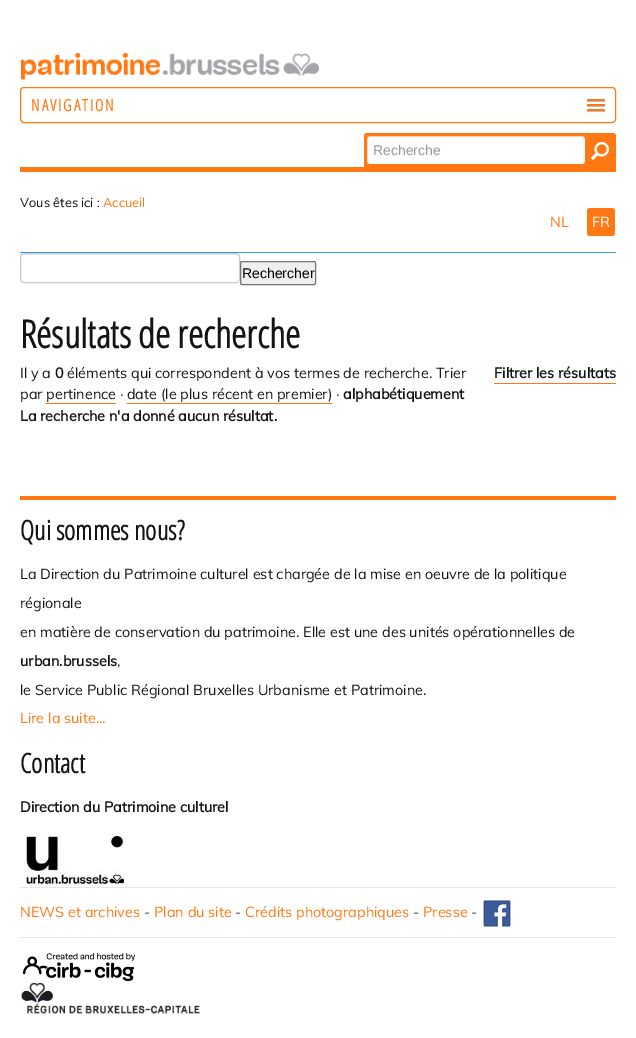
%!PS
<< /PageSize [636 1038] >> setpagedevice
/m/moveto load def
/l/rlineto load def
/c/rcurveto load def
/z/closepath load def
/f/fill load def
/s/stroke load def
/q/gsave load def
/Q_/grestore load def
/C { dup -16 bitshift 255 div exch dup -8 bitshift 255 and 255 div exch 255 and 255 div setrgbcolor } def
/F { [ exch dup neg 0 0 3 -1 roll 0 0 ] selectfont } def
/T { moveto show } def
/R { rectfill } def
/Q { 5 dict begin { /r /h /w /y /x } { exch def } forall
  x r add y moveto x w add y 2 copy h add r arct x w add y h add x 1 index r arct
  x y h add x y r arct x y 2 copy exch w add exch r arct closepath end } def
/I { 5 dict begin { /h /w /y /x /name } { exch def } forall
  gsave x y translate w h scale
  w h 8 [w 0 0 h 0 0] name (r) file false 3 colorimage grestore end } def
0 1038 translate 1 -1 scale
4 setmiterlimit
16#FFFFFF C
0 0 636 1038 R
(1.rgb) 21 52 299 28 I
16#FF7814 C
20.5 87.5 595 35 3.5 Q s
/OpenSansCondensed-Bold 16 F
31 111 m 2 0 (NAVIGATION) ashow
16#BFBFBF C
587 100.5 m -1 2 3.5 1.5 3.5 1.5 c 11 0 l 0 0 4.5 .5 3.5 -1.5 c -1 1 -7.5 .5 -9 .5 c -1.5 0 -8 .5 -9 -.5 c z f
16#FF7814 C
587 99 18 2 1 Q f
16#BFBFBF C
587 105.5 m -1 2 3.5 1.5 3.5 1.5 c 11 0 l 0 0 4.5 .5 3.5 -1.5 c -1 1 -7.5 .5 -9 .5 c -1.5 0 -8 .5 -9 -.5 c z f
16#FF7814 C
587 104 18 2 1 Q f
16#BFBFBF C
587 110.5 m -1 2 3.5 1.5 3.5 1.5 c 11 0 l 0 0 4.5 .5 3.5 -1.5 c -1 1 -7.5 .5 -9 .5 c -1.5 0 -8 .5 -9 -.5 c z f
16#FF7814 C
587 109 18 2 1 Q f
367 133 m 246 0 l 1.5 0 3 1.5 3 3 c 0 31 l -252 0 l 0 -31 l 0 -1.5 1.5 -3 3 -3 c z f
16#FFFFFF C
366 135 220 30 4 Q f
16#ECECEC C
370 137 m 212 0 l 2 0 3 1 3 3 c 0 -1 l 0 -2 -1 -3 -3 -3 c -212 0 l -2 0 -3 1 -3 3 c 0 1 l 0 -2 1 -3 3 -3 c z f
16#FF7814 C
366.5 135.5 219 29 3.5 Q s
/LiberationSans-Regular 14 F
16#999999 C
(Recherche) 373 155 T
(2.rgb) 591 142 18 18 I
16#FF7814 C
20 167 596 5 R
/Muli-Regular 12.75 F
16#141414 C
(Vous êtes ici :) 20 207 T
16#FF7814 C
(Accueil) 103 207 T
/Muli-Regular 14.4 F
(NL) 550 227 T
587 208 28 28 3 Q f
16#FFFFFF C
(FR) 592 227 T
16#329FD7 C
20 252 596 1 R
16#ECECEC C
24 255 m 212 0 l 2 0 3 1 3 3 c 0 -1 l 0 -2 -1 -3 -3 -3 c -212 0 l -2 0 -3 1 -3 3 c 0 1 l 0 -2 1 -3 3 -3 c z f
16#CCCCCC C
20.5 253.5 219 29 3.5 Q s
16#EFEFEF C
240.5 261.5 75 23 1.5 Q q f Q_
16#767676 C
s
/LiberationSans-Regular 14 F
16#000000 C
(Rechercher) 242 278 T
/OpenSansCondensed-Bold 38.5 F
16#141414 C
(Résultats de recherche) 20 348 T
/Muli-Regular 14.4 F
(Il y a) 20 378 T
/Muli-Bold 14.4 F
(0) 55 378 T
/Muli-Regular 14.4 F
(éléments qui correspondent à vos termes de recherche. Trier) 67 378 T
16#FF7814 C
494 383 122 1 R
/Muli-Bold 14.4 F
16#141414 C
(Filtrer les résultats) 494 378 T
/Muli-Regular 14.4 F
(par pertinence · date \(le plus récent en premier\) ·) 20 399 T
16#FF7814 C
46 403 70 1 R
127 403 205 1 R
/Muli-Bold 14.4 F
16#141414 C
(alphabétiquement) 343 399 T
(La recherche n'a donné aucun résultat.) 20 421 T
16#FF7814 C
20 496 596 4 R
/OpenSansCondensed-Bold 27 F
16#141414 C
(Qui sommes nous?) 20 540 T
/Muli-Regular 14.4 F
(La Direction du Patrimoine culturel est chargée de la mise en oeuvre de la politique) 20 579 T
(régionale) 20 608 T
(en matière de conservation du patrimoine. Elle est une des unités opérationnelles de) 20 637 T
/Muli-Bold 14.4 F
(urban.brussels) 20 666 T
/Muli-Regular 14.4 F
(,) 117 666 T
(le Service Public Régional Bruxelles Urbanisme et Patrimoine.) 20 695 T
16#FF7814 C
(Lire la suite...) 20 723 T
/OpenSansCondensed-Bold 27 F
16#141414 C
(Contact) 20 773 T
/Muli-Bold 14.4 F
(Direction du Patrimoine culturel) 20 812 T
(3.rgb) 25 833 101 53 I
16#E7E7E7 C
20 887 596 1 R
/Muli-Regular 14.4 F
16#FF7814 C
(NEWS et archives) 20 917 T
16#141414 C
(-) 144 917 T
16#FF7814 C
(Plan du site) 154 917 T
16#141414 C
(-) 235 917 T
16#FF7814 C
(Crédits photographiques) 245 917 T
16#141414 C
(-) 413 917 T
16#FF7814 C
(Presse) 423 917 T
16#141414 C
(-) 471 917 T
(4.rgb) 483 900 28 27 I
16#E7E7E7 C
20 937 596 1 R
(5.rgb) 23 953 112 28 I
(6.rgb) 21 982 179 32 I
showpage
